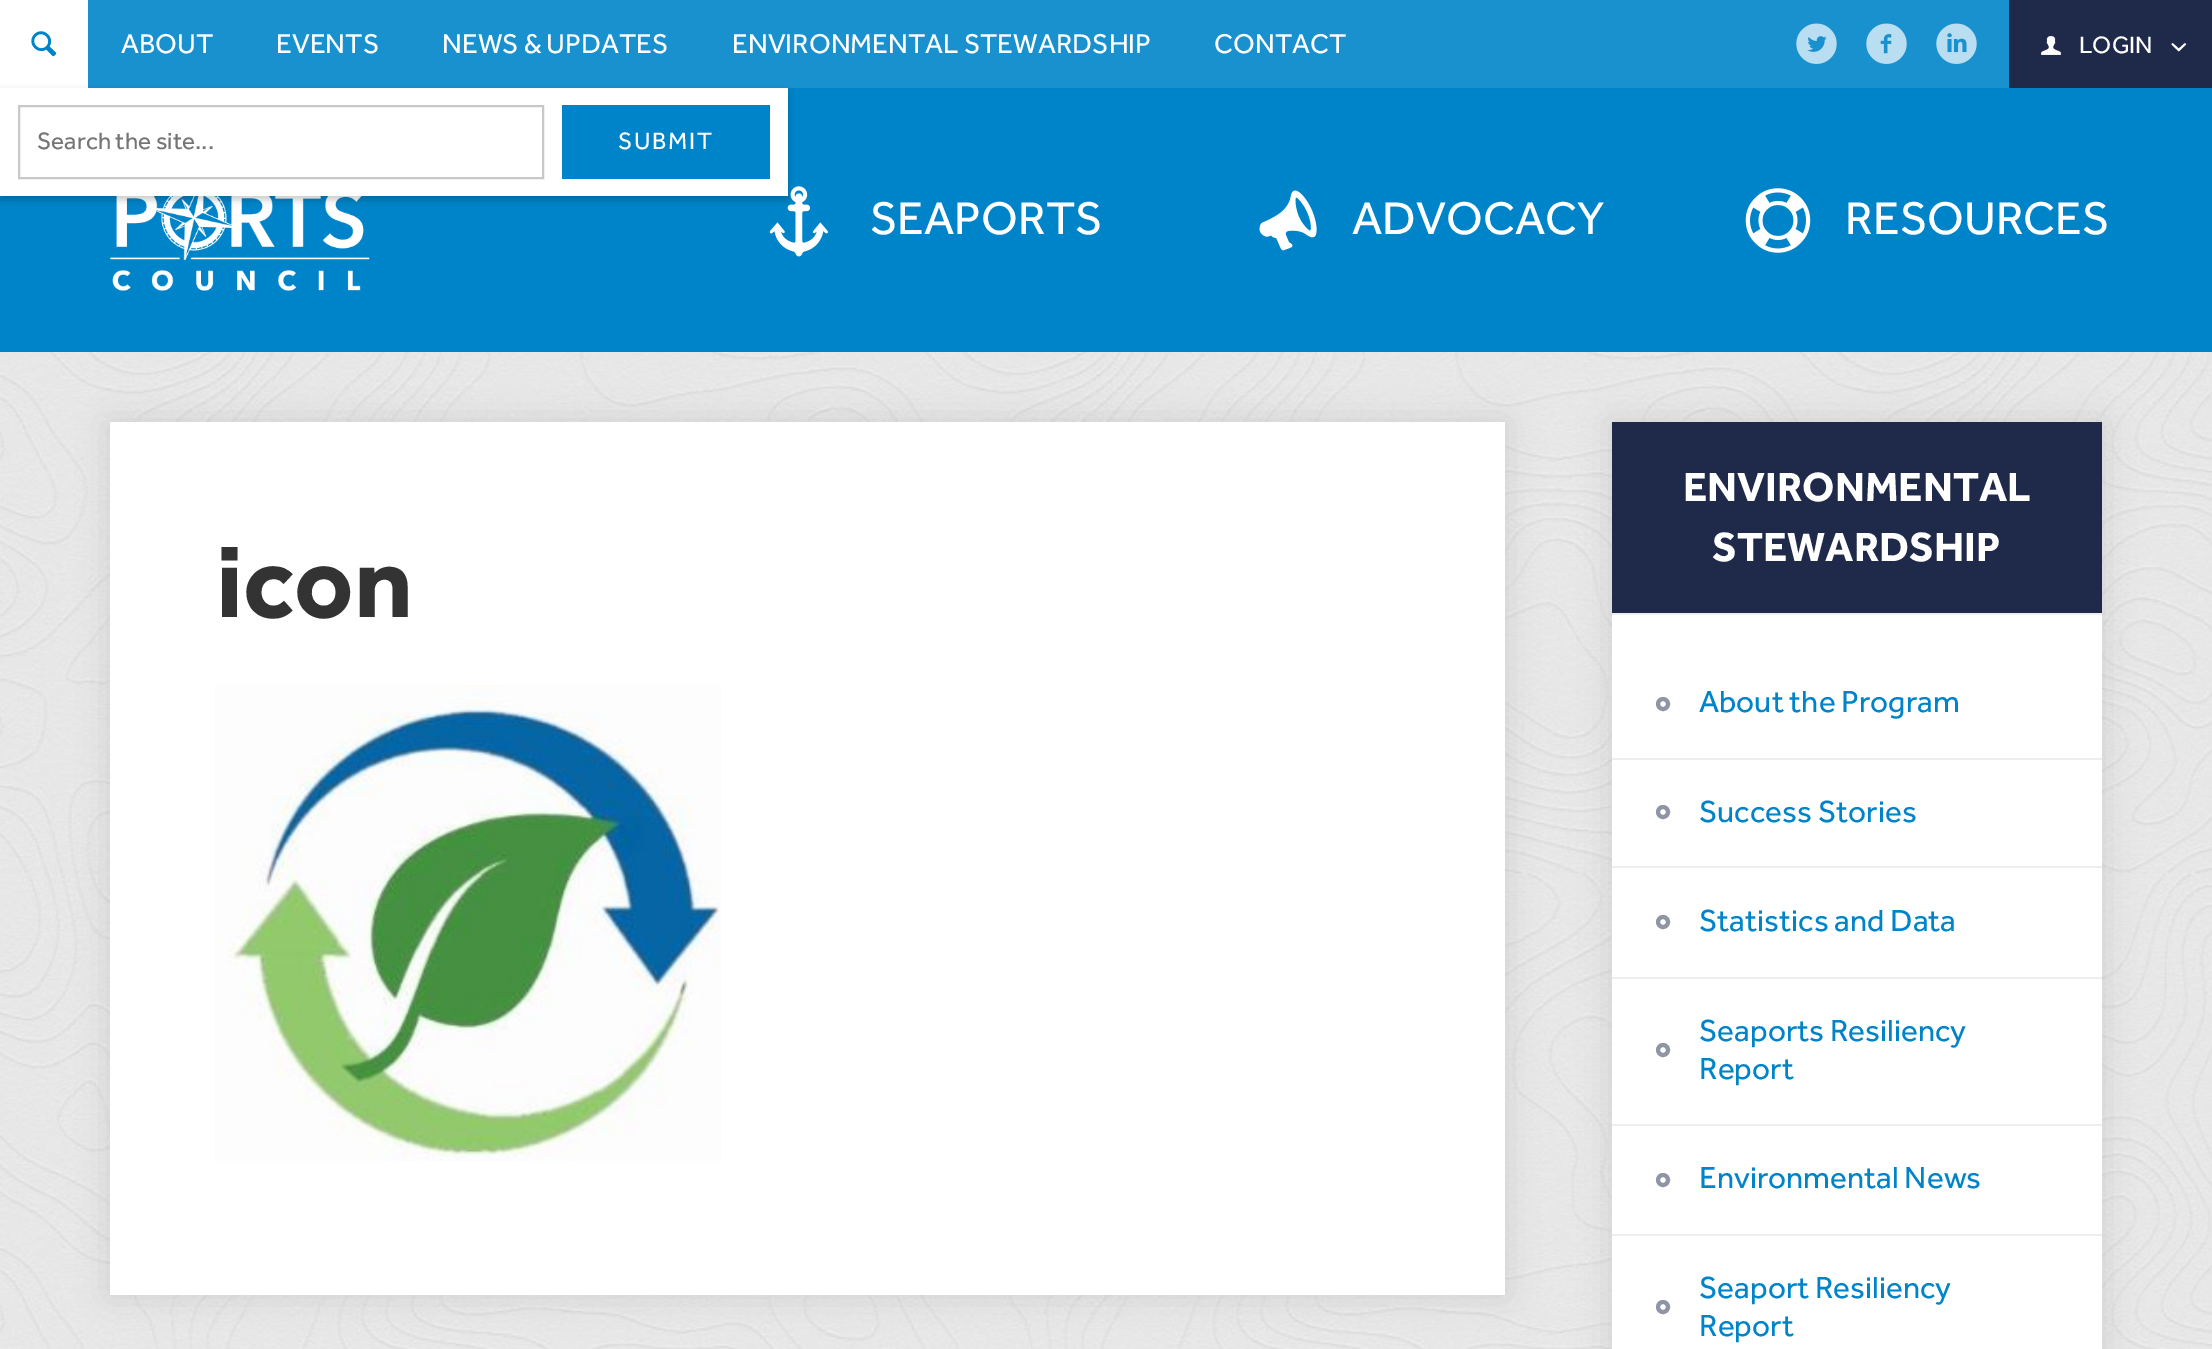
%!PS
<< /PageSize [2212 1349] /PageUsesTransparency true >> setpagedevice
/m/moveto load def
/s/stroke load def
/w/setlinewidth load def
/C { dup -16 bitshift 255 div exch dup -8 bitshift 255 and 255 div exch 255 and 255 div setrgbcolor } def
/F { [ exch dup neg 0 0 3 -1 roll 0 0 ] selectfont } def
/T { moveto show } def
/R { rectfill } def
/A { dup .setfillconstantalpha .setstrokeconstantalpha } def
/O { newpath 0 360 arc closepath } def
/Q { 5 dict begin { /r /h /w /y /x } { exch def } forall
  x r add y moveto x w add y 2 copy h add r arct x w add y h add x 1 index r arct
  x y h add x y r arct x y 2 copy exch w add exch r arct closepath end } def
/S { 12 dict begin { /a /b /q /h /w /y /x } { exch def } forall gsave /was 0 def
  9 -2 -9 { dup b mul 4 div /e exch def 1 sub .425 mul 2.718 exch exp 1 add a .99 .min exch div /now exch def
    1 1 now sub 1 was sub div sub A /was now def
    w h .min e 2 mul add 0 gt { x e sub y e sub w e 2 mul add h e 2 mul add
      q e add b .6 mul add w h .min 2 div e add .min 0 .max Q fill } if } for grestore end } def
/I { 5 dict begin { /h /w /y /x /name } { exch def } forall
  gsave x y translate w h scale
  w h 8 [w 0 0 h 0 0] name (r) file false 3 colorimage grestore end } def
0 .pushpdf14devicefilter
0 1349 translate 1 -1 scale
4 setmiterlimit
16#FFFFFF C
0 0 2212 1349 R
(1.rgb) 0 352 2212 997 I
16#0084C9 C
0 88 2212 264 R
16#1A91CF C
88 0 1921 88 R
/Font-Regular 28 F
16#FFFFFF C
(ABOUT) 121 53 T
(EVENTS) 276 53 T
(NEWS & UPDATES) 442 53 T
(ENVIRONMENTAL STEWARDSHIP) 732 53 T
(CONTACT) 1214 53 T
(2.rgb) 1796 23 41 41 I
(3.rgb) 1866 23 41 41 I
(4.rgb) 1936 23 41 41 I
16#1F2A4A C
2009 0 203 88 R
(5.rgb) 2041 36 20 19 I
/Font-Regular 24.5 F
16#FFFFFF C
(LOGIN) 2079 53 T
(6.rgb) 2171 43 16 9 I
(7.rgb) 31 31 26 26 I
(8.rgb) 769 186 59 71 I
(11.rgb) 110 196 260 95 I
16#000000 C
0 91 788 109 0 3.5 .2 S
16#FFFFFF C
0 88 788 108 R
16#C8C8C8 C
2 w
19 106 524 72 rectstroke
16#757575 C
(Search the site...) 37 149 T
16#0084C9 C
562 105 208 74 R
16#FFFFFF C
618 149 m 1.75 0 (SUBMIT) ashow
/Font-Regular 47.25 F
(SEAPORTS) 870 234 T
(9.rgb) 1259 190 58 61 I
(ADVOCACY) 1352 234 T
(10.rgb) 1745 188 66 65 I
(RESOURCES) 1845 234 T
16#000000 C
110 422 1395 873 0 16 .1 S
16#FFFFFF C
110 422 1395 873 R
/Font-Bold 105 F
16#333333 C
(icon) 216 617 T
(12.rgb) 215 684 506 477 I
16#000000 C
1612 422 490 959 0 16 .1 S
16#FFFFFF C
1612 615 490 734 R
16#1F2A4A C
1612 422 490 191 R
16#EEEEEE C
1612 613 490 2 R
/Font-Bold 42 F
16#FFFFFF C
(ENVIRONMENTAL) 1683 501 T
(STEWARDSHIP) 1712 561 T
16#EEEEEE C
1612 758 490 2 R
16#8F95A5 C
4 w
1663 704 5 O s
/Font-Regular 31.5 F
16#0084C9 C
(About the Program) 1699 712 T
16#EEEEEE C
1612 866 490 2 R
16#8F95A5 C
1663 812 5 O s
16#0084C9 C
(Success Stories) 1699 822 T
16#EEEEEE C
1612 977 490 2 R
16#8F95A5 C
1663 922 5 O s
16#0084C9 C
(Statistics and Data) 1699 931 T
16#EEEEEE C
1612 1124 490 2 R
16#0084C9 C
(Seaports Resiliency) 1699 1041 T
16#8F95A5 C
1663 1050 5 O s
16#0084C9 C
(Report) 1699 1079 T
16#EEEEEE C
1612 1234 490 2 R
16#8F95A5 C
1663 1180 5 O s
16#0084C9 C
(Environmental News) 1699 1188 T
(Seaport Resiliency) 1699 1298 T
16#8F95A5 C
1663 1307 5 O s
16#0084C9 C
(Report) 1699 1336 T
.poppdf14devicefilter showpage
